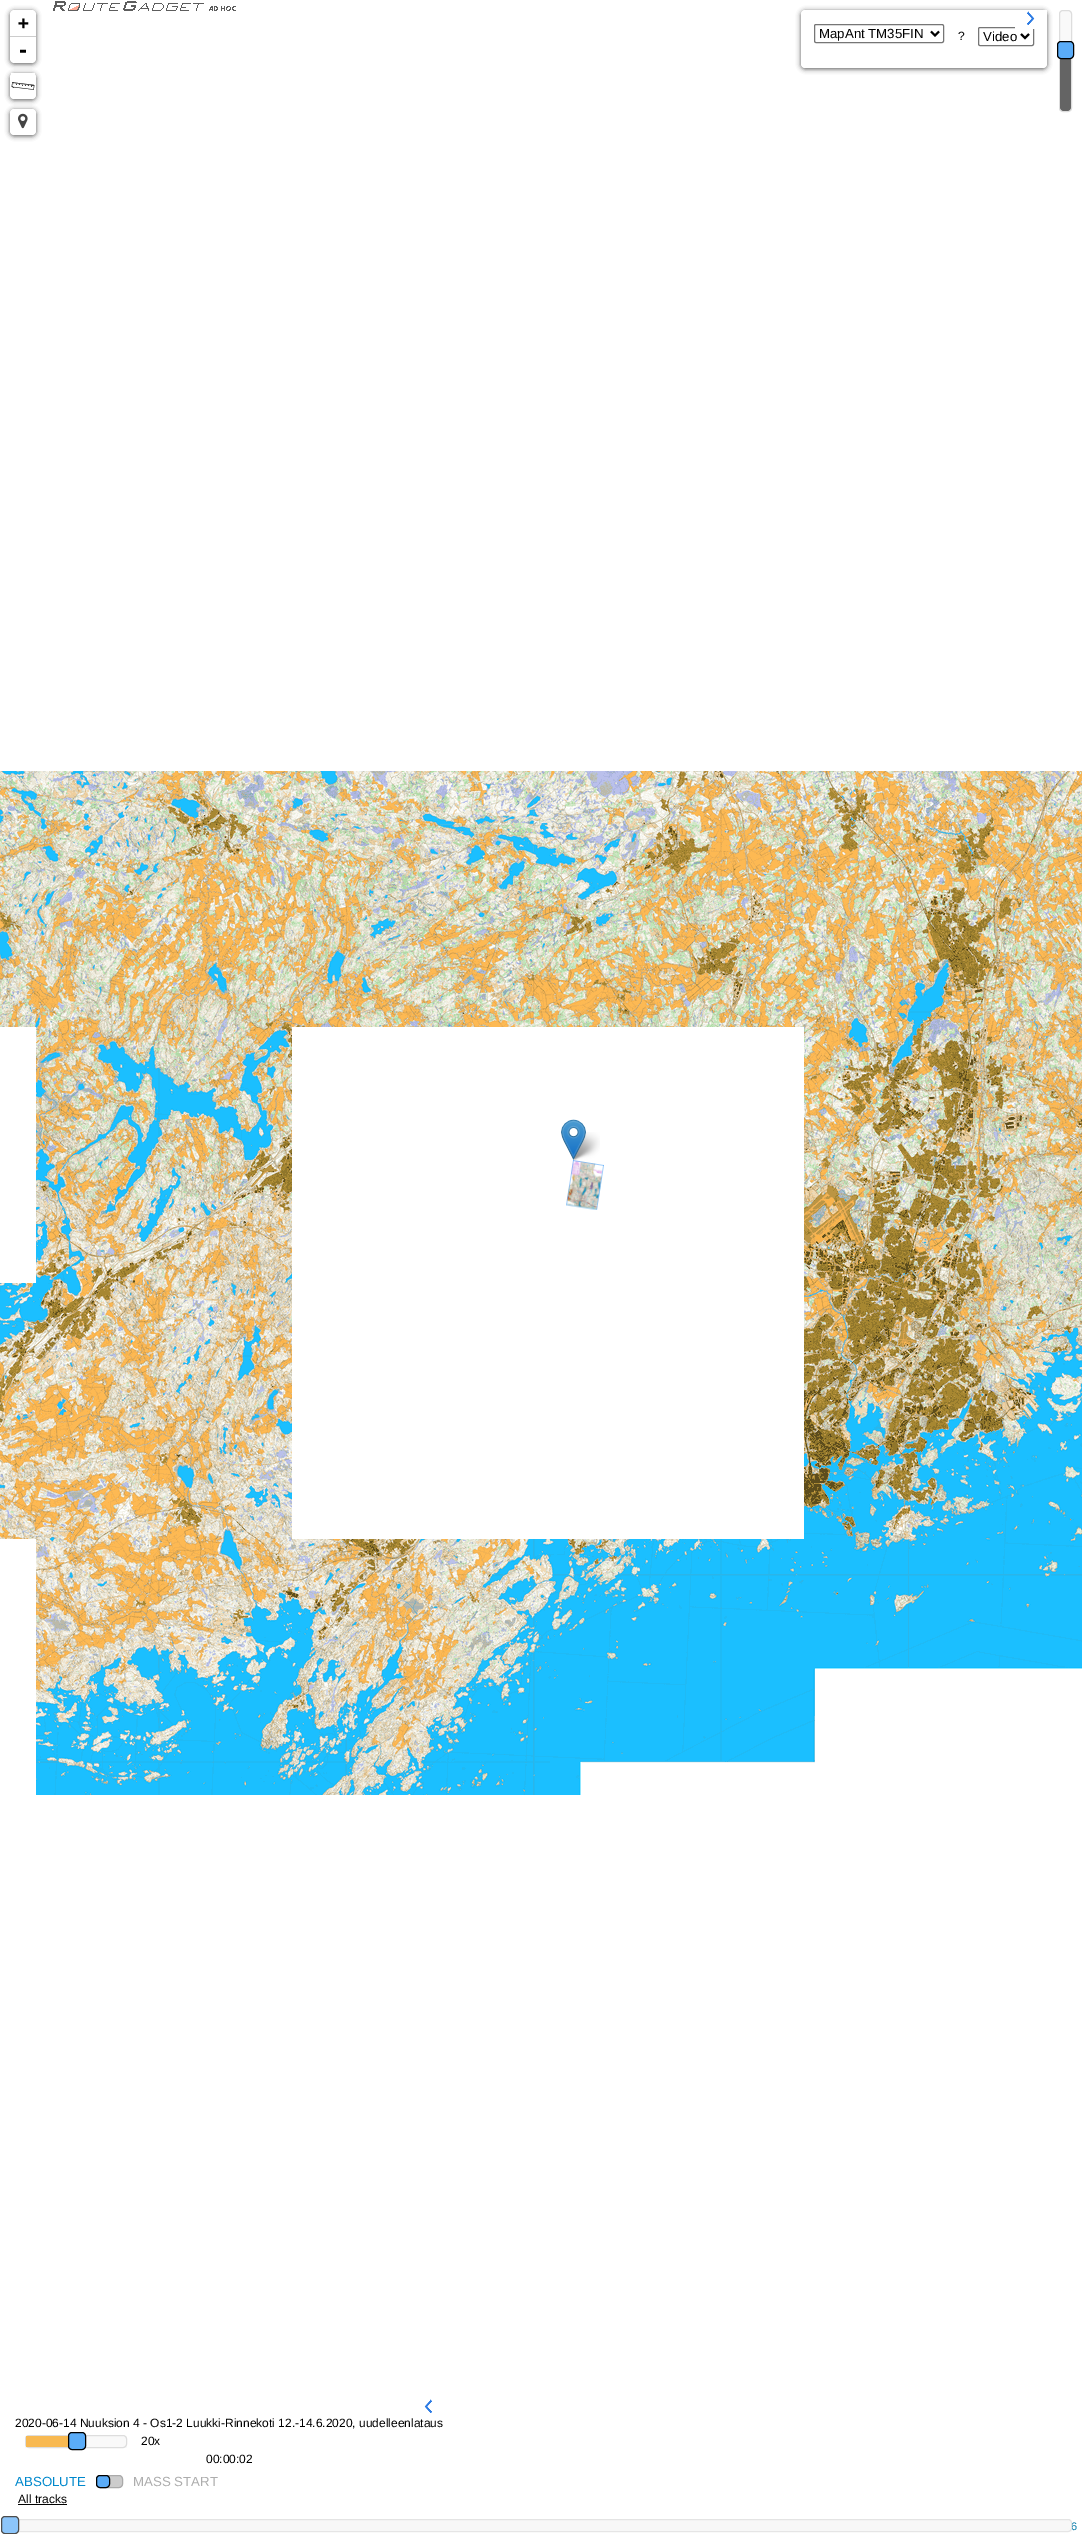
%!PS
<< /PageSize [1082 2534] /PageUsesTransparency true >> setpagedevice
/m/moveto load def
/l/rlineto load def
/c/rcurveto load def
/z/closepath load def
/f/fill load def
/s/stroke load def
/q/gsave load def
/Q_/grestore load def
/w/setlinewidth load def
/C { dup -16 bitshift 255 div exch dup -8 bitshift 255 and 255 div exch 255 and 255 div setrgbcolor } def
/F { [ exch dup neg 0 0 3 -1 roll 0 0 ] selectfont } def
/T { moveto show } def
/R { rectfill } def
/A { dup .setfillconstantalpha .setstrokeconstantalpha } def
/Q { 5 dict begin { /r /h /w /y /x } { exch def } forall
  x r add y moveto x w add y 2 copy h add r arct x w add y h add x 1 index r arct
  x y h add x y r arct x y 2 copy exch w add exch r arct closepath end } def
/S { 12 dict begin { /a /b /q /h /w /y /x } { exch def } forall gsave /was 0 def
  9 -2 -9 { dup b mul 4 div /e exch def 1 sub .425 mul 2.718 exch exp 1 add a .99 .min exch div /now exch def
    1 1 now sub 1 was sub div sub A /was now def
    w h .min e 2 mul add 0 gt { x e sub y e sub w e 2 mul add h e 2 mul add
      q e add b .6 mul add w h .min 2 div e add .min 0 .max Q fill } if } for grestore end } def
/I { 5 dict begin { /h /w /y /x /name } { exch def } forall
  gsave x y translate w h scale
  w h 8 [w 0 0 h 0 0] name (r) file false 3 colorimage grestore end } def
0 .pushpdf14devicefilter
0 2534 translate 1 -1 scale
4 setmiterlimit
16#FFFFFF C
0 0 1082 2534 R
(1.rgb) 53 1 183 10 I
16#000000 C
801 11 246 58 4 2.5 .65 S
16#FFFFFF C
801 10 246 58 4 Q f
16#767676 C
978.5 27.5 55 18 1.5 Q s
16#FFFFFF C
1015 10 32 19 R
(2.rgb) 1027 11 8 14 I
16#000000 C
10 11 26 53 4 2.5 .65 S
16#FFFFFF C
14 10 m 18 0 l 2 0 4 2 4 4 c 0 23 l -26 0 l 0 -23 l 0 -2 2 -4 4 -4 c z f
16#CCCCCC C
10 36 26 1 R
/DejaVuSansMono-Bold 18 F
16#000000 C
(+) 18 29 T
16#FFFFFF C
10 37 m 26 0 l 0 22 l 0 2 -2 4 -4 4 c -18 0 l -2 0 -4 -2 -4 -4 c z f
/DejaVuSansMono-Bold 20 F
16#000000 C
(-) 17 57 T
10 74 26 26 4 2.5 .65 S
16#FFFFFF C
10 73 26 26 4 Q f
(3.rgb) 11 73 24 17 I
16#000000 C
10 110 26 26 4 2.5 .65 S
16#FFFFFF C
10 109 26 26 4 Q f
(4.rgb) 18 113 10 16 I
(5.rgb) 1059 11 13 100 I
16#DDDDDD C
1059.5 10.5 12 101 3.5 Q s
16#646464 C
1060 51 11 60 4 Q f
16#5AACF8 C
1057.5 41.5 16 17 3.5 Q q f Q_
16#000000 C
s
/LiberationSans-Regular 11 F
16#0078A8 C
(6) 1071 2530 T
(6.rgb) 0 771 36 256 I
(7.rgb) 36 771 256 256 I
(8.rgb) 292 771 256 256 I
(9.rgb) 548 771 256 256 I
(10.rgb) 804 771 256 256 I
(11.rgb) 1060 771 22 256 I
(12.rgb) 36 1027 256 256 I
(13.rgb) 804 1027 256 256 I
(14.rgb) 1060 1027 22 256 I
(15.rgb) 0 1283 36 256 I
(16.rgb) 36 1283 256 256 I
(17.rgb) 804 1283 256 256 I
(18.rgb) 1060 1283 22 256 I
(19.rgb) 36 1539 256 256 I
(20.rgb) 292 1539 256 256 I
(21.rgb) 548 1539 256 256 I
(22.rgb) 804 1539 256 224 I
(23.rgb) 1060 1539 22 130 I
(25.rgb) 571 1132 29 28 I
(24.rgb) 561 1119 25 41 I
(26.rgb) 566 1160 38 50 I
16#767676 C
814.5 24.5 129 18 1.5 Q s
16#000000 C
2 w
931 31.5 m 4 4 l 4 -4 l s
/LiberationSans-Regular 13.25 F
(MapAnt TM35FIN) 819 38 T
/LiberationSans-Regular 12 F
(?) 958 40 T
1021 34 m 4 4 l 4 -4 l s
/LiberationSans-Regular 13.25 F
(Video) 983 41 T
(27.rgb) 424 2399 8 14 I
/LiberationSans-Regular 12 F
(2020-06-14 Nuuksion 4 - Os1-2 Luukki-Rinnekoti 12.-14.6.2020, uudelleenlataus) 15 2427 T
16#F9F9F9 C
25 2436 102 12 R
16#DDDDDD C
1 w
25.5 2435.5 101 12 3.5 Q s
16#F8B951 C
26 2436 43 11 R
16#5AACF8 C
68.5 2432.5 17 17 3.5 Q q f Q_
16#000000 C
s
(20x) 141 2445 T
(00:00:02) 206 2463 T
/LiberationSans-Regular 13.25 F
16#0088CC C
(ABSOLUTE) 15 2486 T
16#CCCCCC C
96.5 2475.5 26 12 3.5 Q q f Q_
16#AAAAAA C
s
16#5AACF8 C
96.5 2475.5 13 12 3.5 Q q f Q_
16#000000 C
s
16#ADADAD C
(MASS START) 133 2486 T
/LiberationSans-Regular 12 F
16#000000 C
(All tracks) 18 2503 T
18 2504 49 1 R
0.7 A
16#EEEEEE C
8 2519 1064 13 4 Q f
16#F9F9F9 C
18 2520 1054 12 R
16#DDDDDD C
8.5 2519.5 1063 12 3.5 Q s
1 A
16#8CC5FA C
1.5 2516.5 17 17 3.5 Q q f Q_
16#4D4D4D C
s
.poppdf14devicefilter showpage
